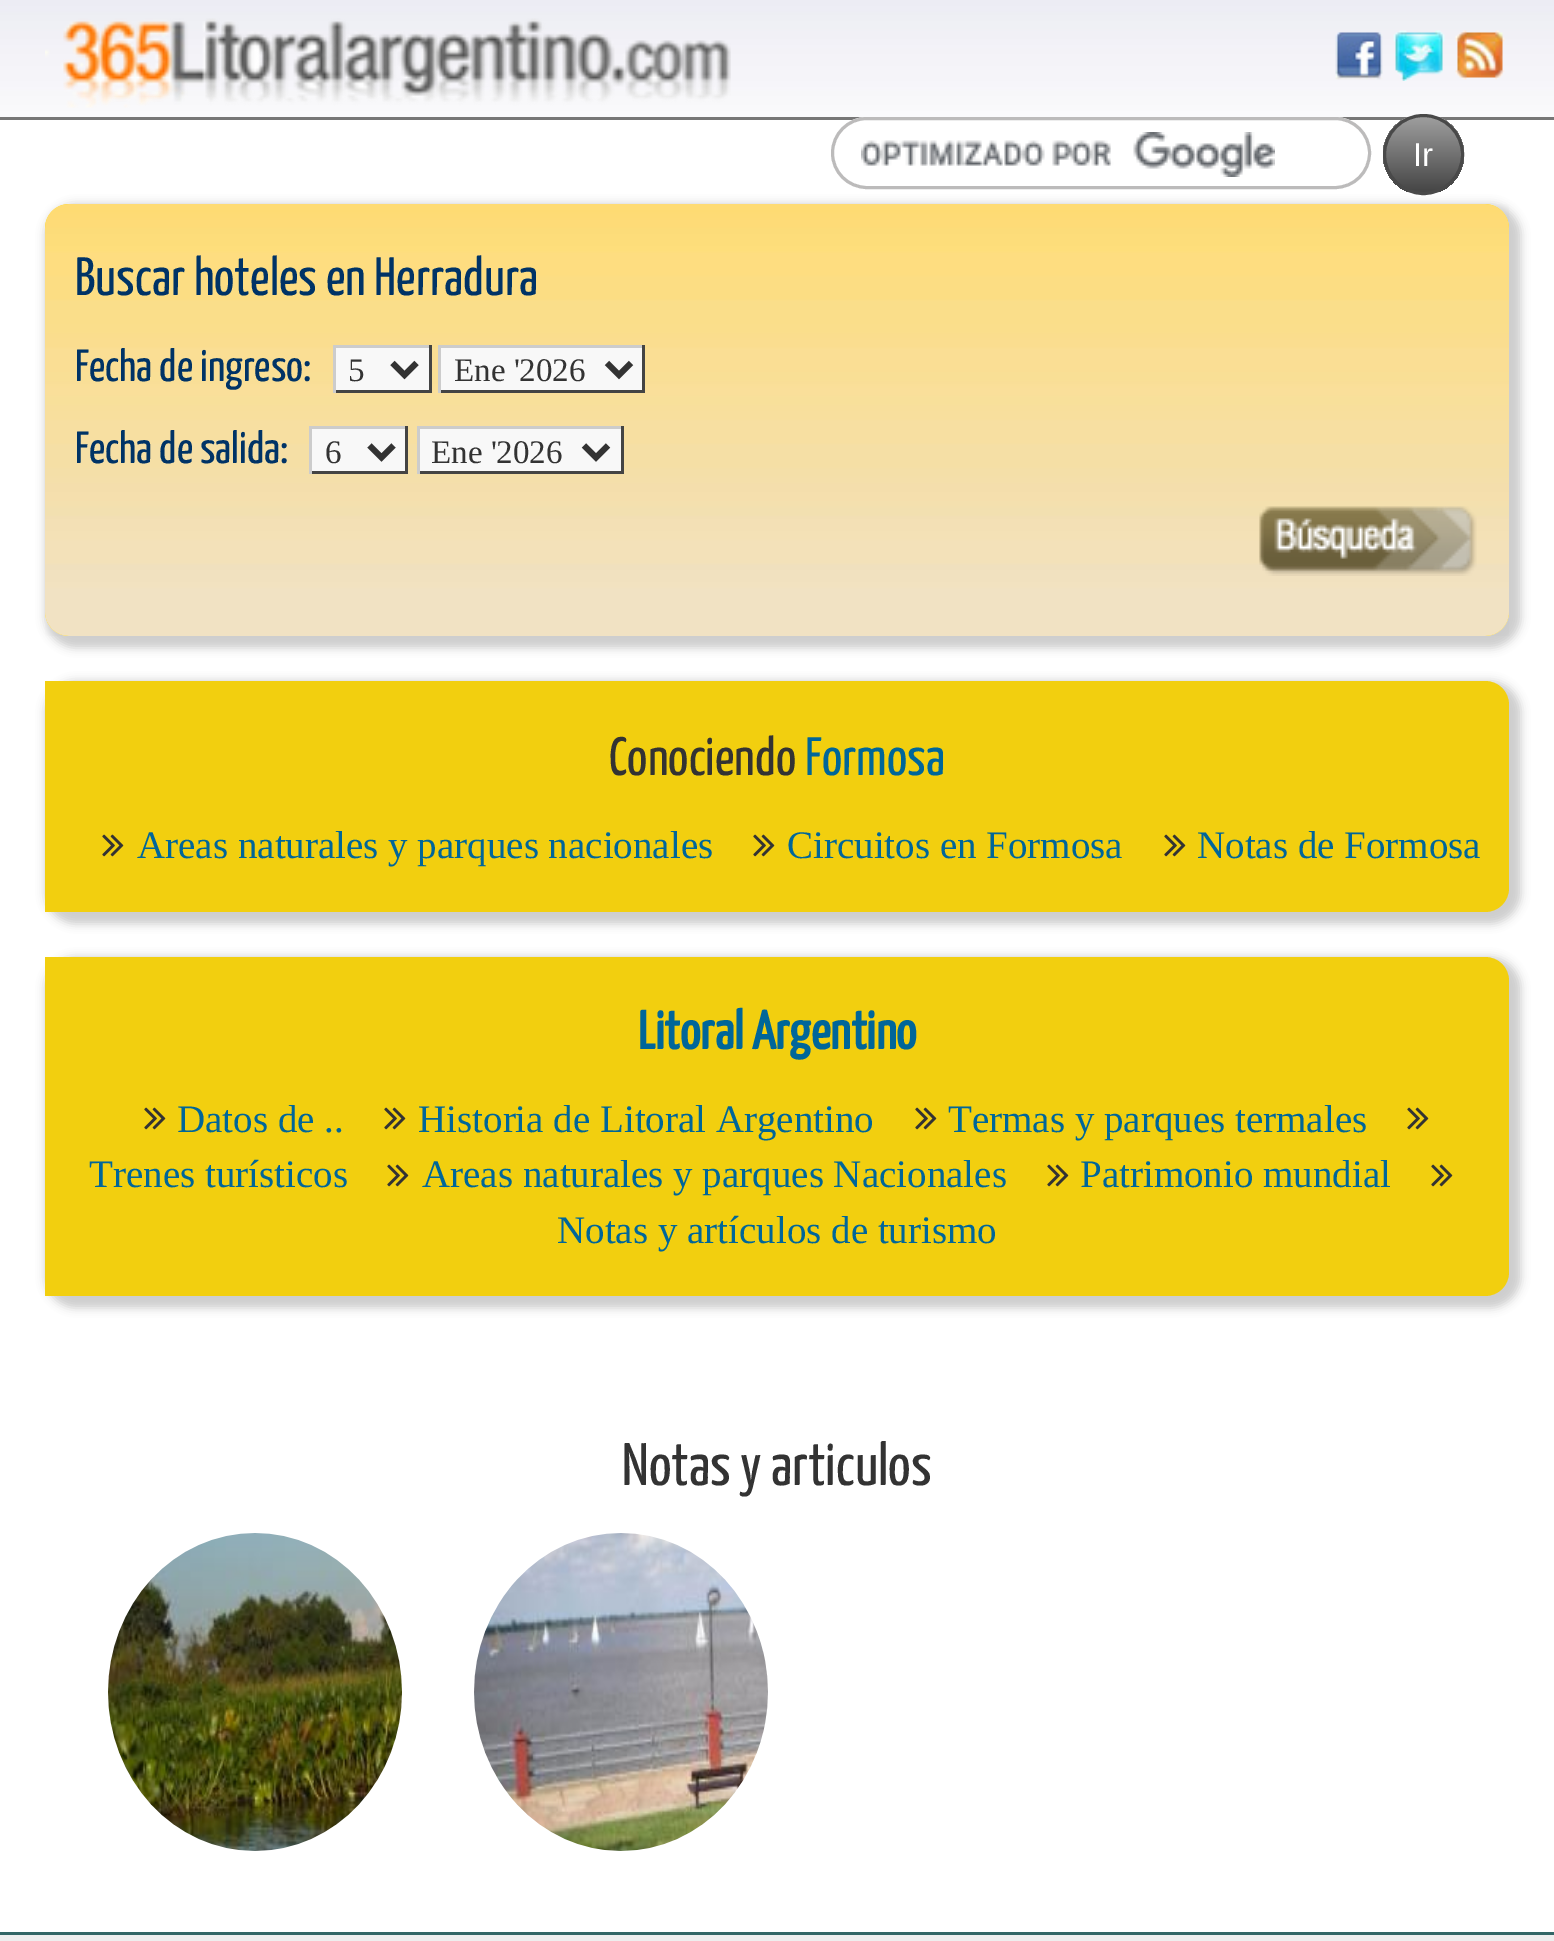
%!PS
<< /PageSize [1554 1941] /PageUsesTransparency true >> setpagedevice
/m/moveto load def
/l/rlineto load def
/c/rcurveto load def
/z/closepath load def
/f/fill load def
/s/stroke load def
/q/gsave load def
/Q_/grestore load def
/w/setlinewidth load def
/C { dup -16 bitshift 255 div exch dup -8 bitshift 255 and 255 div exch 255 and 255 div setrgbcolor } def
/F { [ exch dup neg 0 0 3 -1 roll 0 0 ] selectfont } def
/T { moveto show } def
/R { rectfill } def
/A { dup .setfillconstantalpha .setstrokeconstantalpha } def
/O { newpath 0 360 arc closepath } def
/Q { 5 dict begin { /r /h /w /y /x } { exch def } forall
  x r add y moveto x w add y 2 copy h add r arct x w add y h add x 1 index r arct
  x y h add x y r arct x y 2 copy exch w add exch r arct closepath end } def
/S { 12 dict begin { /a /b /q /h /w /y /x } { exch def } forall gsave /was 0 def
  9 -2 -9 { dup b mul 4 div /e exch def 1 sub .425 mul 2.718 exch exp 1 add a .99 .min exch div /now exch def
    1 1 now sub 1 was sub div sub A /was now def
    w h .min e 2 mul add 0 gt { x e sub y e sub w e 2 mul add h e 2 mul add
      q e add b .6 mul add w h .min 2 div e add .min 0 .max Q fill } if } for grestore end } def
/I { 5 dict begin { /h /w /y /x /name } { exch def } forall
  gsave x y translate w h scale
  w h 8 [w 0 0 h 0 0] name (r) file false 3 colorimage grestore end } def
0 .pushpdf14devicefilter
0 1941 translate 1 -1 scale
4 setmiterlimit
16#FFFFFF C
0 0 1554 1941 R
(1.rgb) 0 0 1554 117 I
16#777777 C
0 117 1554 3 R
(2.rgb) 45 18 686 90 I
(3.rgb) 1335 32 48 48 I
(4.rgb) 1393 30 52 51 I
(5.rgb) 1455 30 50 50 I
16#FFFFFF C
831 117 540 72 36 Q f
(6.rgb) 861 132 414 45 I
16#BCBBBB C
3 w
832.5 118.5 537 69 34.5 Q s
16#CCCCCC C
45 204 1476 444 30 4.5 1 S
q
1383 114 81 81 40.5 Q clip newpath
q 1383 117 m 81 0 l 0 75 l -81 0 l z clip newpath
<< /ShadingType 2 /ColorSpace /DeviceRGB /Coords [1386 117 1386 192] /Extend [true true] /Function << /FunctionType 2 /Domain [0 1] /C0 [.62 .62 .62] /C1 [.271 .271 .271] /N 1 >> >> shfill Q_
Q_
16#494949 C
1423.5 154.5 39 O s
/LiberationSans-Regular 33 F
16#FFFFFF C
(Ir) 1413 166 T
(7.rgb) 45 204 1464 432 I
/YanoneKaffeesatz-ExtraLight 54 F
16#003366 C
(Buscar hoteles en Herradura) 75 295 T
/YanoneKaffeesatz-ExtraLight 45 F
(Fecha de ingreso:) 75 381 T
16#F8F8F8 C
336 348 93 42 R
16#CCCCCC C
333 345 99 3 R
16#444444 C
429 345 3 48 R
333 390 99 3 R
16#CCCCCC C
333 345 3 48 R
16#333333 C
6 w
392.5 363 m 12 12 l 12 -12 l s
/LiberationSerif-Regular 33 F
(5) 348 381 T
16#F8F8F8 C
441 348 201 42 R
16#CCCCCC C
438 345 207 3 R
16#444444 C
642 345 3 48 R
438 390 207 3 R
16#CCCCCC C
438 345 3 48 R
16#333333 C
607 363 m 12 12 l 12 -12 l s
(Ene '2026) 454 381 T
/YanoneKaffeesatz-ExtraLight 45 F
16#003366 C
(Fecha de salida:) 75 463 T
16#F8F8F8 C
312 429 93 42 R
16#CCCCCC C
309 426 99 3 R
16#444444 C
405 426 3 48 R
309 471 99 3 R
16#CCCCCC C
309 426 3 48 R
16#333333 C
369.5 445.5 m 12 12 l 12 -12 l s
/LiberationSerif-Regular 33 F
(6) 325 463 T
16#F8F8F8 C
420 429 201 42 R
16#CCCCCC C
417 426 207 3 R
16#444444 C
621 426 3 48 R
417 471 207 3 R
16#CCCCCC C
417 426 3 48 R
16#333333 C
584 445.5 m 12 12 l 12 -12 l s
q
432 429 141 42 rectclip
(Ene '2026) 431 463 T
Q_
(8.rgb) 1259 506 218 70 I
16#CCCCCC C
45 681 1476 243 30 4.5 1 S
16#F2CF0F C
45 681 m 1440 0 l 13.5 0 24 10.5 24 24 c 0 183 l 0 13.5 -10.5 24 -24 24 c -1440 0 l z f
/YanoneKaffeesatz-ExtraLight 54 F
16#333333 C
(Conociendo) 609 775 T
16#006699 C
(Formosa) 805 775 T
(9.rgb) 102 834 22 23 I
/LiberationSerif-Regular 39 F
(Areas naturales y parques nacionales) 137 858 T
(9.rgb) 753 834 22 23 I
(Circuitos en Formosa) 787 858 T
(9.rgb) 1164 834 22 23 I
(Notas de Formosa) 1197 858 T
16#CCCCCC C
45 957 1476 351 30 4.5 1 S
16#F2CF0F C
45 957 m 1440 0 l 13.5 0 24 10.5 24 24 c 0 291 l 0 13.5 -10.5 24 -24 24 c -1440 0 l z f
/YanoneKaffeesatz-Bold 54 F
16#006699 C
(Litoral Argentino) 638 1049 T
(9.rgb) 144 1107 22 23 I
/LiberationSerif-Regular 39 F
(Datos de ..) 177 1132 T
(9.rgb) 384 1107 22 23 I
(Historia de Litoral Argentino) 418 1132 T
(9.rgb) 915 1107 22 23 I
(Termas y parques termales) 948 1132 T
(9.rgb) 1407 1107 22 23 I
(Trenes turísticos) 89 1187 T
(9.rgb) 387 1164 22 23 I
(Areas naturales y parques Nacionales) 422 1187 T
(9.rgb) 1047 1164 22 23 I
(Patrimonio mundial) 1080 1187 T
(9.rgb) 1431 1164 22 23 I
(Notas y artículos de turismo) 557 1243 T
/YanoneKaffeesatz-ExtraLight 60 F
16#333333 C
(Notas y articulos) 622 1485 T
(10.rgb) 108 1533 294 318 I
(11.rgb) 474 1533 294 318 I
16#EEEEEE C
0 1935 1554 6 R
16#336666 C
0 1932 1554 3 R
.poppdf14devicefilter showpage
